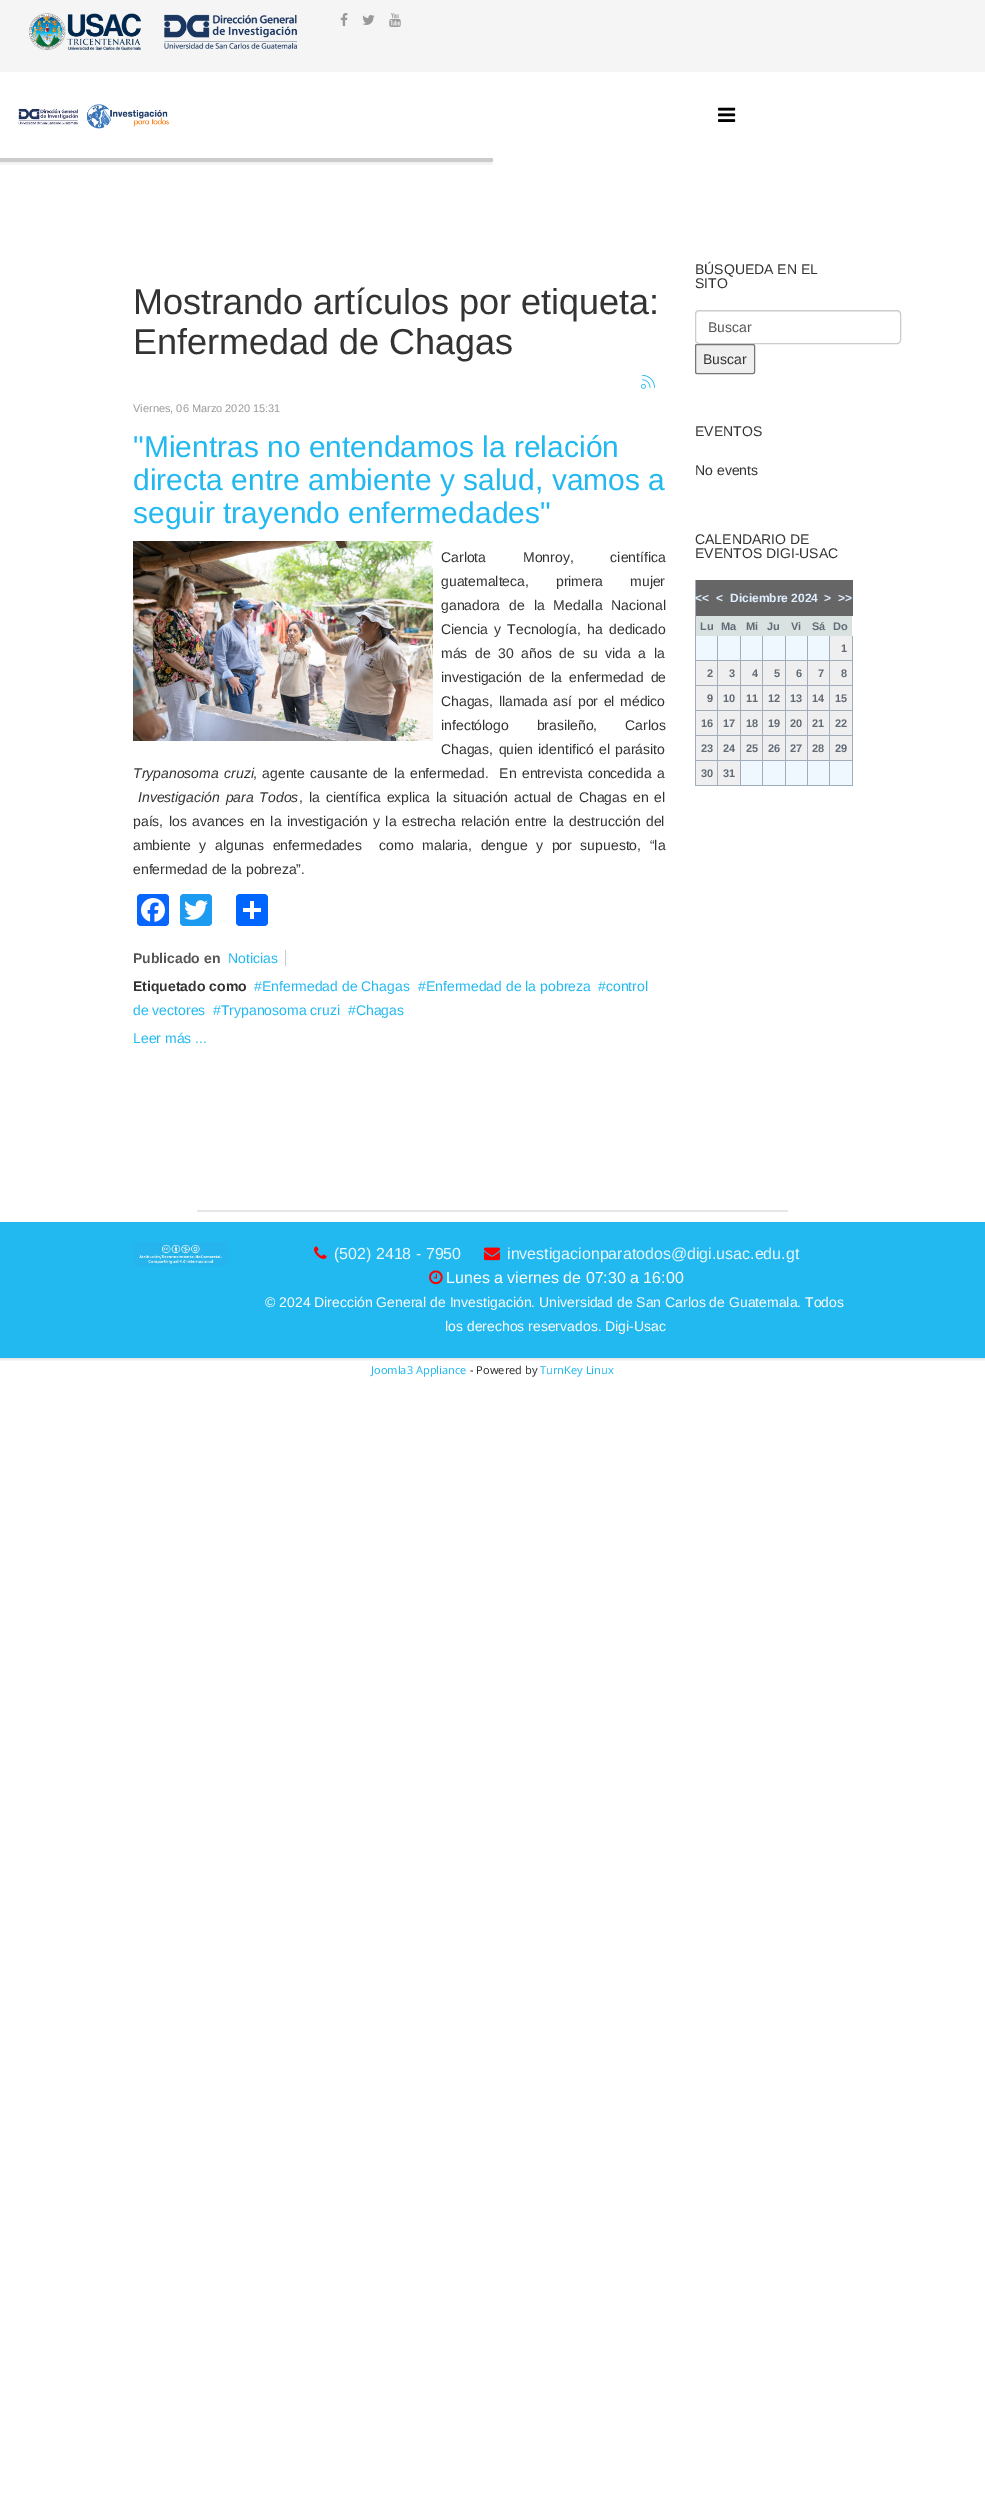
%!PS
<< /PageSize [985 2515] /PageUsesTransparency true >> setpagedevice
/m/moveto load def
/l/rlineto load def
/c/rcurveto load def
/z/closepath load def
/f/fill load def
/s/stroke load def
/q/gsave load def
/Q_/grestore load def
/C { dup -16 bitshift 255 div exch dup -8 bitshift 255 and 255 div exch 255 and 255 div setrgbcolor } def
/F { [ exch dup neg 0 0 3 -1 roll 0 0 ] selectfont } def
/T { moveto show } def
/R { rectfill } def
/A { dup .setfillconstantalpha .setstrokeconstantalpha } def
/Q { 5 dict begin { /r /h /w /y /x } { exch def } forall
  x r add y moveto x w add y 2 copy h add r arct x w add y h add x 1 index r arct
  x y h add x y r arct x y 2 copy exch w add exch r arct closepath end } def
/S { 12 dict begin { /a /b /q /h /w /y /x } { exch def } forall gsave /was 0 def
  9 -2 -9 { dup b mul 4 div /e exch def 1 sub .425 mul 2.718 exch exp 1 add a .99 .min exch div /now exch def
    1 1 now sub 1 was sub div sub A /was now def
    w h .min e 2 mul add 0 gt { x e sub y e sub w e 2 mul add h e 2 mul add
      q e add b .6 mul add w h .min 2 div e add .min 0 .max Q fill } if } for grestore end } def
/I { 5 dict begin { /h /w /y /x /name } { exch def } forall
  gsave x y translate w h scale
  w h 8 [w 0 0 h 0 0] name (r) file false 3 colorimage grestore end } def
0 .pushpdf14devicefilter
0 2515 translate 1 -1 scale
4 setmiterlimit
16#FFFFFF C
0 0 985 2515 R
q
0 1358 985 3 rectclip
16#000000 C
0 0 985 1358 0 2.5 .2 S
Q_
16#F5F5F5 C
0 0 985 72 R
(1.rgb) 28 13 270 37 I
(2.rgb) 340 13 8 13 I
(3.rgb) 362 15 13 10 I
(4.rgb) 389 13 12 14 I
q
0 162 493 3 rectclip
16#000000 C
0 75 493 90 0 1.5 .05 S
Q_
16#CCCCCC C
0 158 493 4 R
(5.rgb) 18 104 151 25 I
(6.rgb) 718 107 18 15 I
/LiberationSans-Regular 36 F
16#333333 C
(Mostrando artículos por etiqueta:) 133 314 T
(Enfermedad de Chagas) 133 354 T
(7.rgb) 641 374 14 15 I
/LiberationSans-Regular 11 F
16#999999 C
(Viernes, 06 Marzo 2020 15:31) 133 412 T
/LiberationSans-Regular 30 F
16#22B8F0 C
("Mientras no entendamos la relación) 133 457 T
(directa entre ambiente y salud, vamos a) 133 490 T
(seguir trayendo enfermedades") 133 523 T
(8.rgb) 133 541 300 200 I
/LiberationSans-Regular 14 F
16#333333 C
441 562 m 33 0 32 (Carlota Monroy, científica) widthshow
441 586 m 23 0 32 (guatemalteca, primera mujer) widthshow
441 610 m 5 0 32 (ganadora de la Medalla Nacional) widthshow
441 634 m 2.5 0 32 (Ciencia y Tecnología, ha dedicado) widthshow
441 658 m 3.75 0 32 (más de 30 años de su vida a la) widthshow
441 682 m 3 0 32 (investigación de la enfermedad de) widthshow
441 706 m 1.75 0 32 (Chagas, llamada así por el médico) widthshow
441 730 m 24 0 32 (infectólogo brasileño, Carlos) widthshow
441 754 m 1.5 0 32 (Chagas, quien identificó el parásito) widthshow
/LiberationSans-Italic 14 F
133 778 m 2 0 32 (Trypanosoma cruzi) widthshow
/LiberationSans-Regular 14 F
253 778 m 1.5 0 32 (, agente causante de la enfermedad.  En entrevista concedida a) widthshow
/LiberationSans-Italic 14 F
138 802 m 2 0 32 (Investigación para Todos) widthshow
/LiberationSans-Regular 14 F
299 802 m 2 0 32 (, la científica explica la situación actual de Chagas en el) widthshow
133 826 m 1.5 0 32 (país, los avances en la investigación y la estrecha relación entre la destrucción del) widthshow
133 850 m 4.75 0 32 (ambiente y algunas enfermedades  como malaria, dengue y por supuesto, “la) widthshow
(enfermedad de la pobreza”.) 133 874 T
16#0866FF C
137 894 32 32 4 Q f
(9.rgb) 141 898 24 24 I
16#1D9BF0 C
180 894 32 32 4 Q f
(10.rgb) 184 900 24 20 I
16#0166FF C
236 894 32 32 4 Q f
16#FFFFFF C
250 901 4 18 R
243 908 18 4 R
/LiberationSans-Bold 14 F
16#555555 C
(Publicado en) 133 963 T
/LiberationSans-Regular 14 F
16#22B8F0 C
(Noticias) 228 963 T
16#CCCCCC C
285 950 1 16 R
/LiberationSans-Bold 14 F
16#333333 C
(Etiquetado como) 133 991 T
/LiberationSans-Regular 14 F
16#22B8F0 C
(#Enfermedad de Chagas) 254 991 T
(#Enfermedad de la pobreza) 418 991 T
(#control) 598 991 T
(de vectores) 133 1015 T
(#Trypanosoma cruzi) 213 1015 T
(#Chagas) 348 1015 T
(Leer más ...) 133 1043 T
16#333333 C
(BÚSQUEDA EN EL) 695 274 T
(SITO) 695 288 T
16#ECECEC C
699 312 m 198 0 l 2 0 3 1 3 3 c 0 -2 -1 -4 -3 -4 c -198 0 l -2 0 -3 2 -3 4 c 0 -2 1 -3 3 -3 c z f
16#CCCCCC C
695.5 310.5 205 33 3.5 Q s
16#555555 C
(Buscar) 708 332 T
16#EFEFEF C
695.5 344.5 59 29 1.5 Q q f Q_
16#767676 C
s
16#333333 C
(Buscar) 703 364 T
(EVENTOS) 695 436 T
(No events) 695 475 T
(CALENDARIO DE) 695 544 T
(EVENTOS DIGI-USAC) 695 558 T
16#A2ADBC C
695 580 1 206 R
16#666666 C
696 580 157 36 R
/LiberationSans-Bold 12 F
16#DFEFFF C
(<<) 695 602 T
(<) 716 602 T
(Diciembre 2024) 730 602 T
(>) 824 602 T
(>>) 838 602 T
16#D9E2E1 C
696 616 156 20 R
/LiberationSans-Bold 11 F
16#616B76 C
(Lu) 700 630 T
(Ma) 721 630 T
(Mi) 746 630 T
(Ju) 767 630 T
(Vi) 791 630 T
(Sá) 812 630 T
(Do) 833 630 T
16#F0F8FF C
696 636 21 24 R
16#A2ADBC C
852 636 1 150 R
829 785 24 1 R
829 760 1 26 R
829 760 24 1 R
829 735 1 26 R
829 735 24 1 R
829 710 1 26 R
829 710 24 1 R
829 685 1 26 R
829 685 24 1 R
829 660 1 26 R
829 660 24 1 R
829 636 1 25 R
807 785 23 1 R
807 760 1 26 R
807 760 23 1 R
807 735 1 26 R
807 735 23 1 R
807 710 1 26 R
807 710 23 1 R
807 685 1 26 R
807 685 23 1 R
807 660 1 26 R
807 660 23 1 R
807 636 1 25 R
785 785 23 1 R
785 760 1 26 R
785 760 23 1 R
785 735 1 26 R
785 735 23 1 R
785 710 1 26 R
785 710 23 1 R
785 685 1 26 R
785 685 23 1 R
785 660 1 26 R
785 660 23 1 R
785 636 1 25 R
762 785 24 1 R
762 760 1 26 R
762 760 24 1 R
762 735 1 26 R
762 735 24 1 R
762 710 1 26 R
762 710 24 1 R
762 685 1 26 R
762 685 24 1 R
762 660 1 26 R
762 660 24 1 R
762 636 1 25 R
740 785 23 1 R
740 760 1 26 R
740 760 23 1 R
740 735 1 26 R
740 735 23 1 R
740 710 1 26 R
740 710 23 1 R
740 685 1 26 R
740 685 23 1 R
740 660 1 26 R
740 660 23 1 R
740 636 1 25 R
717 785 24 1 R
717 760 1 26 R
717 760 24 1 R
717 735 1 26 R
717 735 24 1 R
717 710 1 26 R
717 710 24 1 R
717 685 1 26 R
717 685 24 1 R
717 660 1 26 R
717 660 24 1 R
717 636 1 25 R
695 660 23 1 R
16#F0F8FF C
718 636 22 24 R
741 636 21 24 R
763 636 22 24 R
786 636 21 24 R
808 636 21 24 R
16#EFEFEF C
830 636 22 24 R
16#616B76 C
(1) 841 652 T
16#EFEFEF C
696 661 21 24 R
16#A2ADBC C
695 685 23 1 R
16#616B76 C
(2) 707 677 T
16#EFEFEF C
718 661 22 24 R
16#616B76 C
(3) 729 677 T
16#EFEFEF C
741 661 21 24 R
16#616B76 C
(4) 752 677 T
16#EFEFEF C
763 661 22 24 R
16#616B76 C
(5) 774 677 T
16#EFEFEF C
786 661 21 24 R
16#616B76 C
(6) 796 677 T
16#EFEFEF C
808 661 21 24 R
16#616B76 C
(7) 818 677 T
16#EFEFEF C
830 661 22 24 R
16#616B76 C
(8) 841 677 T
16#EFEFEF C
696 686 21 24 R
16#A2ADBC C
695 710 23 1 R
16#616B76 C
(9) 707 702 T
16#EFEFEF C
718 686 22 24 R
16#616B76 C
(10) 723 702 T
16#EFEFEF C
741 686 21 24 R
16#616B76 C
(11) 746 702 T
16#EFEFEF C
763 686 22 24 R
16#616B76 C
(12) 768 702 T
16#EFEFEF C
786 686 21 24 R
16#616B76 C
(13) 790 702 T
16#EFEFEF C
808 686 21 24 R
16#616B76 C
(14) 812 702 T
16#EFEFEF C
830 686 22 24 R
16#616B76 C
(15) 835 702 T
16#EFEFEF C
696 711 21 24 R
16#A2ADBC C
695 735 23 1 R
16#616B76 C
(16) 701 727 T
16#EFEFEF C
718 711 22 24 R
16#616B76 C
(17) 723 727 T
16#EFEFEF C
741 711 21 24 R
16#616B76 C
(18) 746 727 T
16#EFEFEF C
763 711 22 24 R
16#616B76 C
(19) 768 727 T
16#EFEFEF C
786 711 21 24 R
16#616B76 C
(20) 790 727 T
16#EFEFEF C
808 711 21 24 R
16#616B76 C
(21) 812 727 T
16#EFEFEF C
830 711 22 24 R
16#616B76 C
(22) 835 727 T
16#EFEFEF C
696 736 21 24 R
16#A2ADBC C
695 760 23 1 R
16#616B76 C
(23) 701 752 T
16#EFEFEF C
718 736 22 24 R
16#616B76 C
(24) 723 752 T
16#EFEFEF C
741 736 21 24 R
16#616B76 C
(25) 746 752 T
16#EFEFEF C
763 736 22 24 R
16#616B76 C
(26) 768 752 T
16#EFEFEF C
786 736 21 24 R
16#616B76 C
(27) 790 752 T
16#EFEFEF C
808 736 21 24 R
16#616B76 C
(28) 812 752 T
16#EFEFEF C
830 736 22 24 R
16#616B76 C
(29) 835 752 T
16#EFEFEF C
696 761 21 24 R
16#A2ADBC C
695 785 23 1 R
16#616B76 C
(30) 701 777 T
16#EFEFEF C
718 761 22 24 R
16#616B76 C
(31) 723 777 T
16#F0F8FF C
741 761 21 24 R
763 761 22 24 R
786 761 21 24 R
808 761 21 24 R
830 761 22 24 R
16#22B8F0 C
0 1222 985 136 R
16#E6E6E6 C
197 1210 591 2 R
(11.rgb) 133 1242 95 24 I
(12.rgb) 314 1246 13 13 I
/LiberationSans-Regular 16 F
16#E9F8FE C
(\(502\) 2418 - 7950) 334 1259 T
(13.rgb) 484 1247 16 14 I
(investigacionparatodos@digi.usac.edu.gt) 507 1259 T
(14.rgb) 429 1270 14 15 I
16#FFFFFF C
(Lunes a viernes de 07:30 a 16:00) 446 1283 T
/LiberationSans-Regular 14 F
(© 2024 Dirección General de Investigación. Universidad de San Carlos de Guatemala. Todos) 265 1307 T
(los derechos reservados. Digi-Usac) 445 1331 T
/NotoSans-Regular 11 F
16#22B8F0 C
(Joomla3 Appliance) 371 1374 T
16#333333 C
(- Powered by) 470 1374 T
16#22B8F0 C
(TurnKey Linux) 540 1374 T
.poppdf14devicefilter showpage
